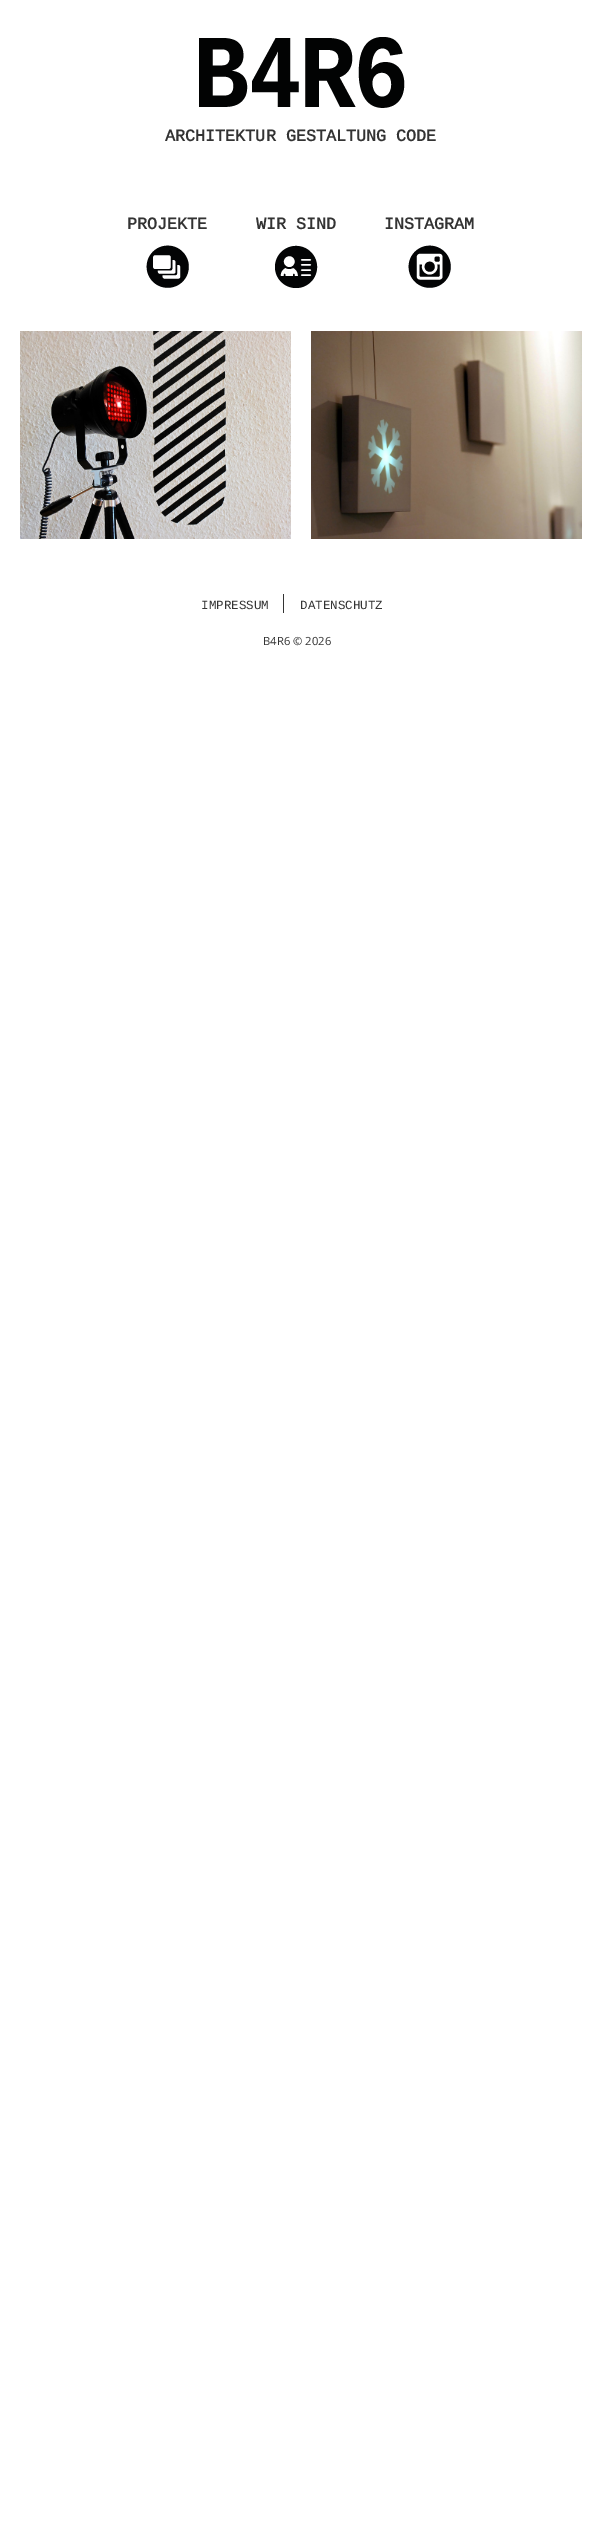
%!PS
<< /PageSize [602 2532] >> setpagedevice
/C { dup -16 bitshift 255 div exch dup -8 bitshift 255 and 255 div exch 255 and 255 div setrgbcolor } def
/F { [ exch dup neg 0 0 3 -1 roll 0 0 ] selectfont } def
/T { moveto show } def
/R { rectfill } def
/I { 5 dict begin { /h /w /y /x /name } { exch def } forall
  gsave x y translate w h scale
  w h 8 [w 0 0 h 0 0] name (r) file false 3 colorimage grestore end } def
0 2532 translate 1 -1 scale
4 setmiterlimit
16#FFFFFF C
0 0 602 2532 R
(1.rgb) 199 37 206 71 I
/LiberationMono-Bold 16.75 F
16#333333 C
(ARCHITEKTUR GESTALTUNG CODE) 165 141 T
(PROJEKTE) 127 229 T
(2.rgb) 146 245 43 43 I
(WIR SIND) 256 229 T
(3.rgb) 275 245 43 43 I
(INSTAGRAM) 384 229 T
(4.rgb) 408 245 43 43 I
(5.rgb) 20 331 271 208 I
(6.rgb) 311 331 271 208 I
283 594 1 19 R
/LiberationMono-Regular 12.5 F
(IMPRESSUM) 201 609 T
(DATENSCHUTZ) 300 609 T
/OpenSans-Regular 11.25 F
(B4R6 © 2026) 263 645 T
showpage
